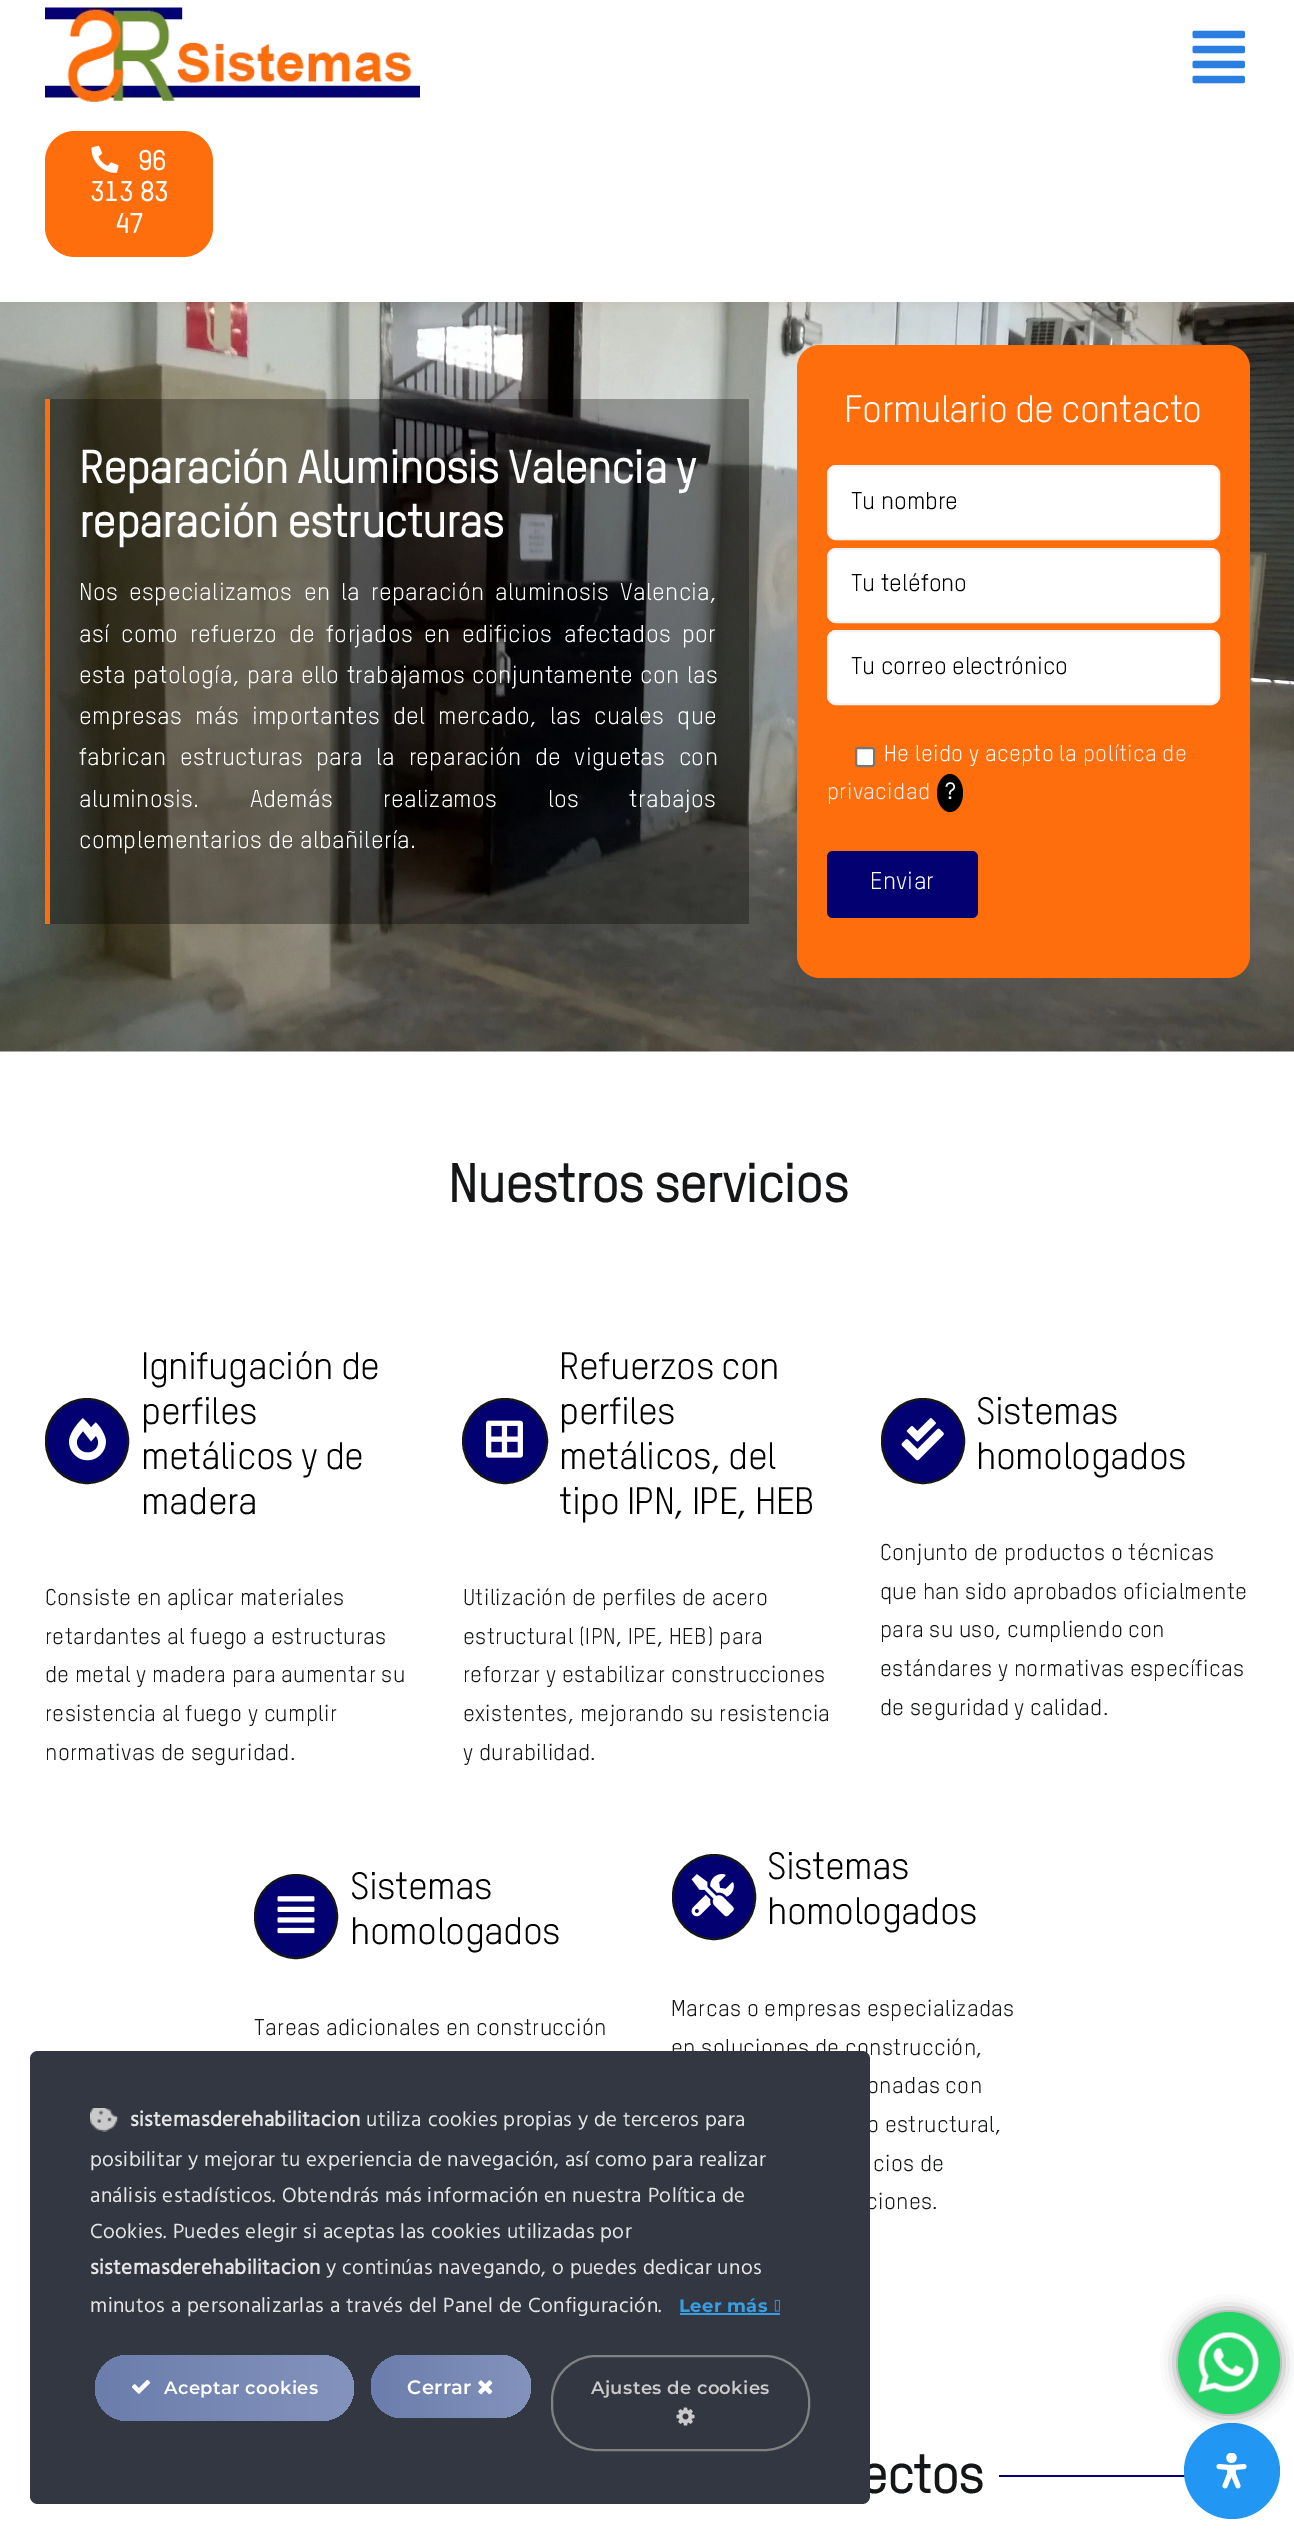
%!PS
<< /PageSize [1294 2533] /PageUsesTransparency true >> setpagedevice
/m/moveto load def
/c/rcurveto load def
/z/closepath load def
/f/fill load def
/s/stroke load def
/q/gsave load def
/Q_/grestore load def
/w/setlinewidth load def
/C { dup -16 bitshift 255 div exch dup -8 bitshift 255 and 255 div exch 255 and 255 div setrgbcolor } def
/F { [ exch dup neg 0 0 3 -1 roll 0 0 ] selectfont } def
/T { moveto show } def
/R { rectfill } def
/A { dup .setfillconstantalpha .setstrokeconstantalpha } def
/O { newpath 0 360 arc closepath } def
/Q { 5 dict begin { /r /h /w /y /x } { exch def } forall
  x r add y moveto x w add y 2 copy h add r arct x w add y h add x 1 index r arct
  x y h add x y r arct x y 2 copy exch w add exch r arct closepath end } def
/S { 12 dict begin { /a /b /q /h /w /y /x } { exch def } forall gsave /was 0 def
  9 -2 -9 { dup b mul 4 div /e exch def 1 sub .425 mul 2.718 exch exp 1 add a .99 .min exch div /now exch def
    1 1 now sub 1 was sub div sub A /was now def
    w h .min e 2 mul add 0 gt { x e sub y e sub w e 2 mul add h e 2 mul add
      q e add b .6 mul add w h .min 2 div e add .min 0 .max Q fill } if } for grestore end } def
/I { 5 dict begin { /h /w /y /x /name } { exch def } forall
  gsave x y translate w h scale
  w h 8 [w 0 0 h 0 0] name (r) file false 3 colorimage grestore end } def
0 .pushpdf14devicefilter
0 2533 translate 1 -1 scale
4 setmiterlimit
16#FFFFFF C
0 0 1294 2533 R
(4.rgb) 0 302 1294 750 I
16#50351F C
0 3 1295 302 0 4 .05 S
16#FFFFFF C
0 0 1294 302 R
(1.rgb) 45 7 375 95 I
(2.rgb) 1192 30 53 54 I
16#FF6E0D C
45 131 168 126 30 Q f
(3.rgb) 91 145 28 28 I
/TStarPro-Bold 27 F
16#FFFFFF C
138 170 m .5 0 (96) ashow
90 201 m .5 0 (313 83) ashow
115 233 m .5 0 (47) ashow
0.31 A
16#000000 C
50 399 699 525 R
1 A
16#FF6E0D C
45 399 5 525 R
/TStarPro-Bold 45 F
16#FFFFFF C
79 483 m -.7 0 (Reparación Aluminosis Valencia y) ashow
79 537 m -.7 0 (reparación estructuras) ashow
/TStarPro-Regular 24 F
79 600 m 5.25 0 32 .35 0 (Nos especializamos en la reparación aluminosis Valencia,) awidthshow
79 642 m 5.5 0 32 .35 0 (así como refuerzo de forjados en edificios afectados por) awidthshow
79 683 m 1.5 0 32 .35 0 (esta patología, para ello trabajamos conjuntamente con las) awidthshow
79 724 m 7.25 0 32 .35 0 (empresas más importantes del mercado, las cuales que) awidthshow
79 765 m 7.5 0 32 .35 0 (fabrican estructuras para la reparación de viguetas con) awidthshow
79 807 m 44.5 0 32 .35 0 (aluminosis. Además realizamos los trabajos) awidthshow
79 848 m .35 0 (complementarios de albañilería.) ashow
16#FF6E0D C
797 345 453 633 23 Q f
/TStarPro-Regular 37.5 F
16#FFFFFF C
844 422 m -.6 0 (Formulario de contacto) ashow
828 466 391 73 8 Q q f Q_
16#F2F3F5 C
2 w
s
/TStarPro-Regular 24 F
16#000000 C
(Tu nombre) 851 509 T
16#FFFFFF C
828 549 391 73 8 Q q f Q_
16#F2F3F5 C
s
16#000000 C
(Tu teléfono) 851 591 T
16#FFFFFF C
828 631 391 73 8 Q q f Q_
16#F2F3F5 C
s
16#000000 C
(Tu correo electrónico) 851 674 T
16#FFFFFF C
856 748 18 18 2 Q q f Q_
16#767676 C
s
/TStarPro-Regular 22.5 F
16#FFFFFF C
884 761 m .35 0 (He leido y acepto la) ashow
16#EDEDED C
1083 761 m .35 0 (política de) ashow
827 799 m .35 0 (privacidad) ashow
16#000000 C
950 774 m 7 0 13 8.5 13 19 c 0 10.5 -6 19 -13 19 c -7 0 -13 -8.5 -13 -19 c 0 -10.5 6 -19 13 -19 c z f
/TStarPro-Bold 22.5 F
16#FFFFFF C
945 799 m .35 0 (?) ashow
16#030172 C
827 851 151 67 6 Q f
/TStarPro-Regular 24 F
16#FFFFFF C
870 889 m .35 0 (Enviar) ashow
/TStarPro-Bold 52.5 F
16#141617 C
448 1202 m -.75 0 (Nuestros servicios) ashow
16#030172 C
46 1399 82 84 41 Q q f Q_
16#141617 C
s
(5.rgb) 69 1418 37 43 I
/TStarPro-Regular 37.5 F
16#000000 C
141 1379 m -.6 0 (Ignifugación de) ashow
141 1424 m -.6 0 (perfiles) ashow
141 1469 m -.6 0 (metálicos y de) ashow
141 1514 m -.6 0 (madera) ashow
/TStarPro-Regular 22.5 F
16#141617 C
45 1605 m .35 0 (Consiste en aplicar materiales) ashow
45 1644 m .35 0 (retardantes al fuego a estructuras) ashow
45 1682 m .35 0 (de metal y madera para aumentar su) ashow
45 1721 m .35 0 (resistencia al fuego y cumplir) ashow
45 1760 m .35 0 (normativas de seguridad.) ashow
16#030172 C
505 1441 42 O q f Q_
16#141617 C
s
(6.rgb) 486 1420 37 38 I
/TStarPro-Regular 37.5 F
16#000000 C
559 1379 m -.6 0 (Refuerzos con) ashow
559 1424 m -.6 0 (perfiles) ashow
559 1469 m -.6 0 (metálicos, del) ashow
559 1514 m -.6 0 (tipo IPN, IPE, HEB) ashow
/TStarPro-Regular 22.5 F
16#141617 C
463 1605 m .35 0 (Utilización de perfiles de acero) ashow
463 1644 m .35 0 (estructural \(IPN, IPE, HEB\) para) ashow
463 1682 m .35 0 (reforzar y estabilizar construcciones) ashow
463 1721 m .35 0 (existentes, mejorando su resistencia) ashow
463 1760 m .35 0 (y durabilidad.) ashow
16#030172 C
882 1399 82 84 41 Q q f Q_
16#141617 C
s
(7.rgb) 901 1418 43 43 I
/TStarPro-Regular 37.5 F
16#000000 C
976 1424 m -.6 0 (Sistemas) ashow
976 1469 m -.6 0 (homologados) ashow
/TStarPro-Regular 22.5 F
16#141617 C
880 1560 m .35 0 (Conjunto de productos o técnicas) ashow
880 1599 m .35 0 (que han sido aprobados oficialmente) ashow
880 1637 m .35 0 (para su uso, cumpliendo con) ashow
880 1676 m .35 0 (estándares y normativas específicas) ashow
880 1715 m .35 0 (de seguridad y calidad.) ashow
16#030172 C
255 1875 82 83 41 Q q f Q_
16#141617 C
s
(8.rgb) 277 1896 38 38 I
/TStarPro-Regular 37.5 F
16#000000 C
350 1899 m -.6 0 (Sistemas) ashow
350 1944 m -.6 0 (homologados) ashow
/TStarPro-Regular 22.5 F
16#141617 C
254 2035 m .35 0 (Tareas adicionales en construcción) ashow
16#030172 C
673 1855 82 84 41 Q q f Q_
16#141617 C
s
(9.rgb) 691 1874 43 43 I
/TStarPro-Regular 37.5 F
16#000000 C
767 1879 m -.6 0 (Sistemas) ashow
767 1924 m -.6 0 (homologados) ashow
/TStarPro-Regular 22.5 F
16#141617 C
671 2016 m .35 0 (Marcas o empresas especializadas) ashow
671 2055 m .35 0 (en soluciones de construcción,) ashow
867 2093 m .35 0 (onadas con) ashow
867 2132 m .35 0 (o estructural,) ashow
873 2171 m .35 0 (cios de) ashow
866 2209 m .35 0 (ciones.) ashow
/TStarPro-Bold 52.5 F
860 2493 m -.75 0 (ectos) ashow
16#030172 C
999 2475 186 2 R
16#323742 C
30 2051 840 453 8 Q f
(10.rgb) 90 2108 29 24 I
/Hind-Bold 21 F
16#E5E5E5 C
130 2126 m .35 0 (sistemasderehabilitacion) ashow
/Hind-Regular 21 F
366 2126 m .35 0 (utiliza cookies propias y de terceros para) ashow
90 2166 m .35 0 (posibilitar y mejorar tu experiencia de navegación, así como para realizar) ashow
90 2202 m .35 0 (análisis estadísticos. Obtendrás más información en nuestra Política de) ashow
90 2238 m .35 0 (Cookies. Puedes elegir si aceptas las cookies utilizadas por) ashow
/Hind-Bold 21 F
90 2274 m .35 0 (sistemasderehabilitacion) ashow
/Hind-Regular 21 F
326 2274 m .35 0 (y continúas navegando, o puedes dedicar unos) ashow
90 2312 m .35 0 (minutos a personalizarlas a través del Panel de Configuración.) ashow
/Montserrat-Bold 18 F
16#369EE3 C
679 2312 m .35 0 (Leer más) ashow
680 2313 100 2 R
(11.rgb) 774 2299 6 13 I
q 95 2355 259 66 33 Q clip newpath
<< /ShadingType 2 /ColorSpace /DeviceRGB /Coords [95 2388 354 2388] /Extend [true true] /Function << /FunctionType 2 /Domain [0 1] /C0 [.42 .49 .675] /C1 [.514 .576 .737] /N 1 >> >> shfill Q_
(12.rgb) 132 2379 19 15 I
/Montserrat-SemiBold 18 F
16#FFFFFF C
164 2394 m .35 0 (Aceptar cookies) ashow
q 371 2355 160 63 31.5 Q clip newpath
<< /ShadingType 2 /ColorSpace /DeviceRGB /Coords [371 2387 531 2387] /Extend [true true] /Function << /FunctionType 2 /Domain [0 1] /C0 [.42 .49 .675] /C1 [.514 .576 .737] /N 1 >> >> shfill Q_
/Montserrat-SemiBold 19.5 F
407 2394 m .35 0 (Cerrar) ashow
(13.rgb) 478 2380 15 15 I
16#808181 C
552 2356 257 94 44 Q s
/Montserrat-SemiBold 18 F
16#CACACA C
591 2394 m .35 0 (Ajustes de cookies) ashow
(14.rgb) 676 2407 19 19 I
16#2196F3 C
1232 2471 48 O f
16#000000 C
1178 2312 102 102 51 8 .5 S
16#25D366 C
1229 2363 51 O f
(15.rgb) 1198 2332 61 61 I
(16.rgb) 1216 2453 31 36 I
.poppdf14devicefilter showpage
